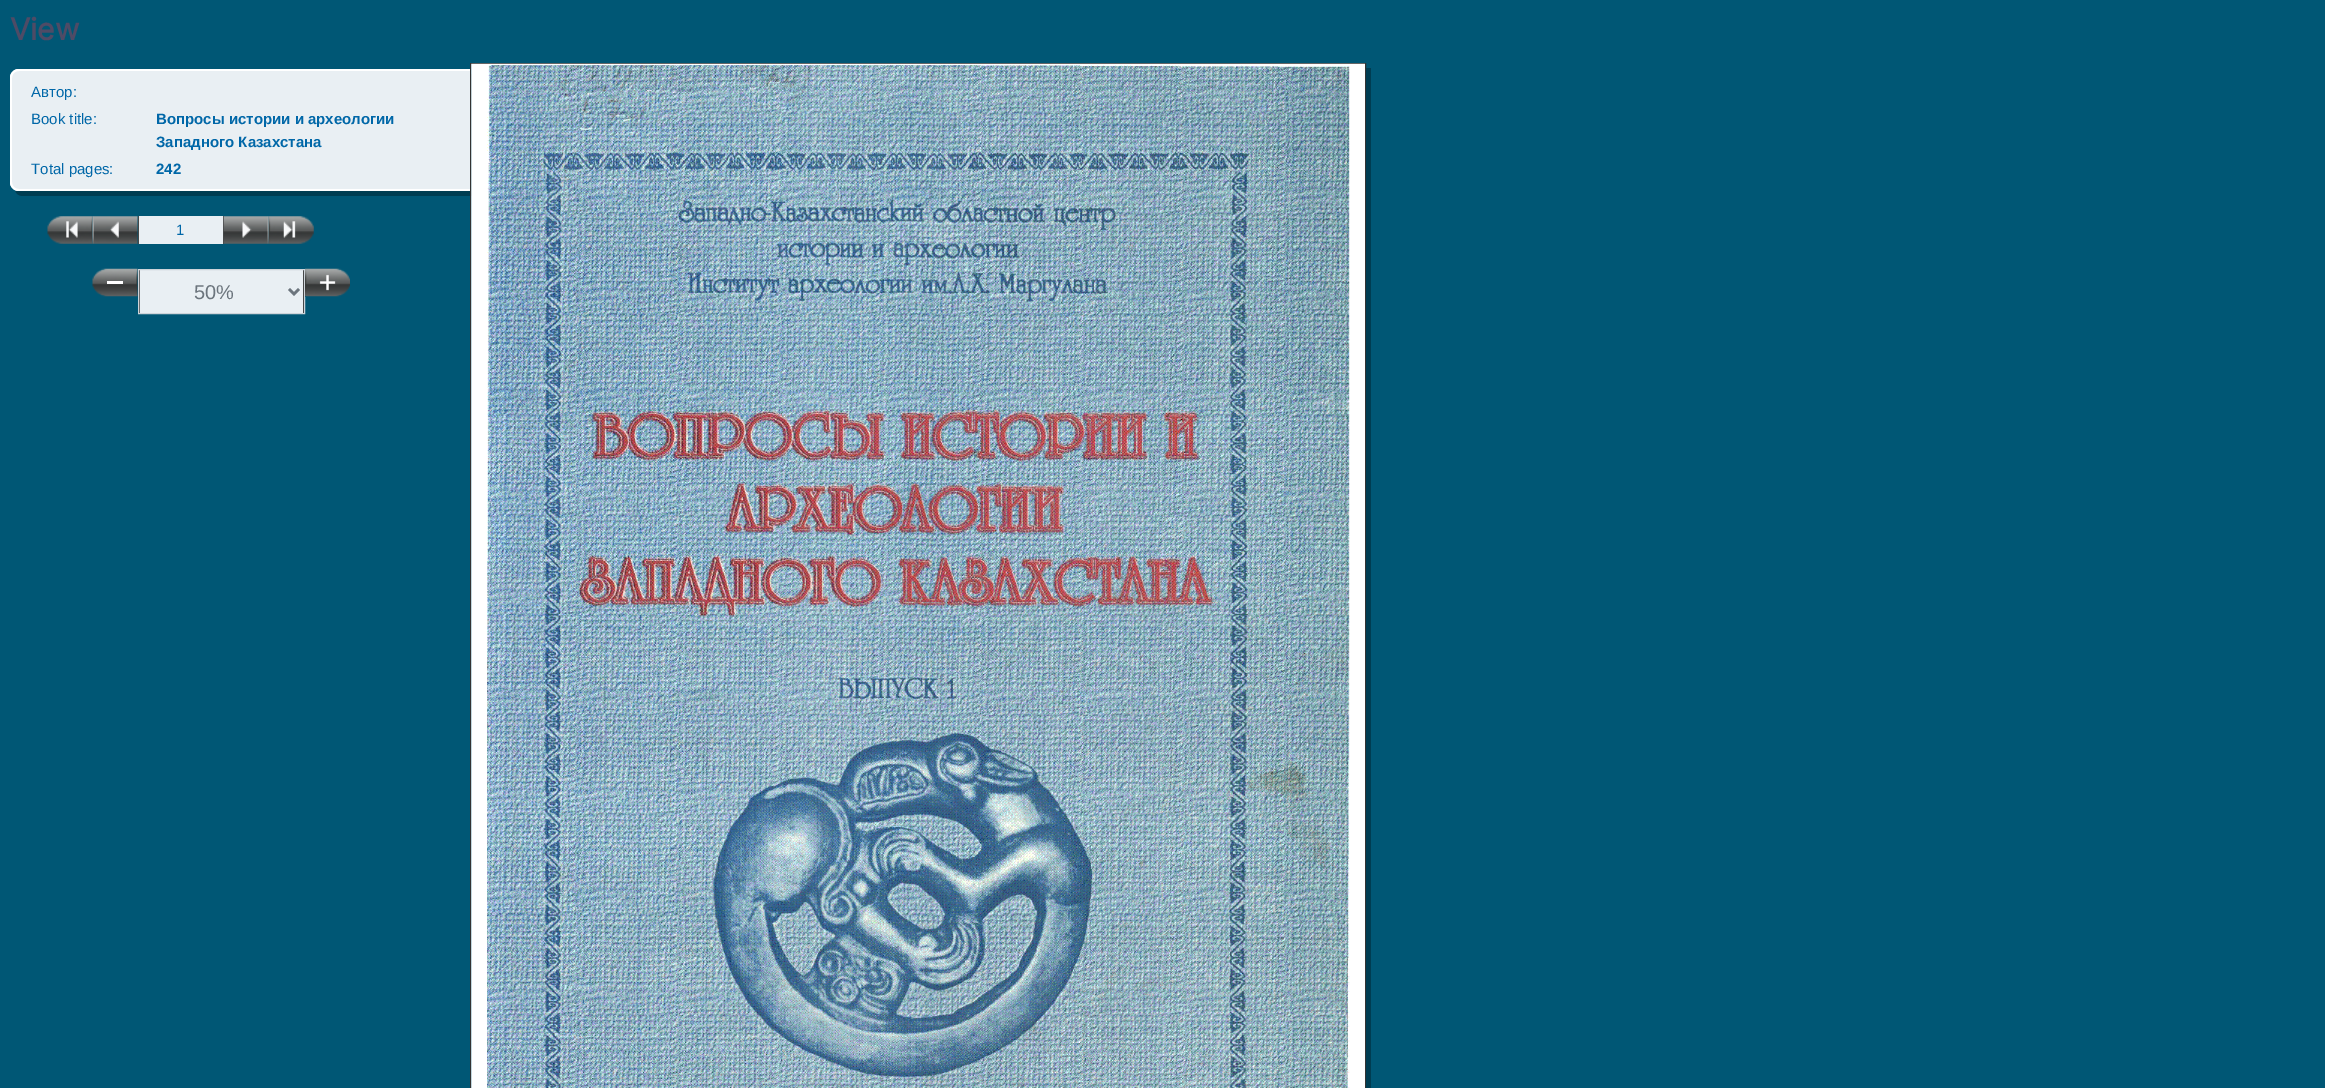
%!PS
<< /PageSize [2325 1088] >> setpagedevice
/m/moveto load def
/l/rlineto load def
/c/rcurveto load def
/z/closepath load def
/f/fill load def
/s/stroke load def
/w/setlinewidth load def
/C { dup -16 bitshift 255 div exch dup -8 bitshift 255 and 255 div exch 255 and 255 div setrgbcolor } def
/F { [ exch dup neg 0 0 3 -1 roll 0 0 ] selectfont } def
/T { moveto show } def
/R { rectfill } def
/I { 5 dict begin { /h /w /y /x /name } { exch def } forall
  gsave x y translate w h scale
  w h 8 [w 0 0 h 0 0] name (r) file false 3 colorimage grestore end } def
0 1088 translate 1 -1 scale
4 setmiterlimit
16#005775 C
0 0 2325 1088 R
/Inter-Bold 30 F
16#4E4B66 C
(View) 10 40 T
16#003D52 C
15 190 m 1 4 4 6 8 6 c 451 0 l 0 -122 l -4 0 l 0 117 l -451 0 l z f
16#E9EFF3 C
19 69 m 451 0 l 0 122 l -451 0 l -5 0 -9 -4 -9 -9 c 0 -104 l 0 -5 4 -9 9 -9 c z f
16#FFFFFF C
19 69 m 451 0 l 0 122 l -451 0 l -5 0 -9 -4 -9 -9 c 0 -104 l 0 -5 4 -9 9 -9 c z 19 71 m 451 0 l 0 118 l -451 0 l -4 0 -7 -3 -7 -7 c 0 -104 l 0 -4 3 -7 7 -7 c z eofill
/LiberationSans-Regular 15 F
16#0067A8 C
(Автор:) 31 97 T
(Book title:) 31 124 T
/LiberationSans-Bold 15 F
(Вопросы истории и археологии) 156 124 T
(Западного Казахстана) 156 147 T
/LiberationSans-Regular 15 F
(Total pages:) 31 174 T
/LiberationSans-Bold 15 F
(242) 156 174 T
(1.rgb) 47 216 46 28 I
(2.rgb) 66 221 12 17 I
(3.rgb) 92 216 46 28 I
(4.rgb) 110 221 9 17 I
16#E9EFF3 C
139 216 84 28 R
16#464849 C
223 216 1 28 R
138 216 1 28 R
/LiberationSans-Regular 15 F
16#0067A8 C
(1) 176 235 T
(5.rgb) 223 216 46 28 I
(6.rgb) 242 221 10 17 I
(7.rgb) 268 216 46 28 I
(8.rgb) 283 221 13 18 I
(9.rgb) 92 268 46 29 I
16#FEFEFF C
107 281 16 3 R
16#E9EFF3 C
140 270 163 43 R
16#464849 C
303 270 1 43 R
139 270 1 43 R
16#CED4DA C
138.5 269.5 166 44 rectstroke
16#6C757D C
2.5 w
289 289 m 5 5 l 5 -5 l s
/LiberationSans-Regular 20 F
(50%) 194 299 T
(10.rgb) 305 268 45 29 I
(11.rgb) 319 274 17 17 I
16#333333 C
1 w
470.5 63.5 895 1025 rectstroke
(12.rgb) 471 63 894 1025 I
16#003D52 C
475 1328 m 0 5 l 896 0 l 0 -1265 l -5 0 l 0 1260 l z f
showpage
